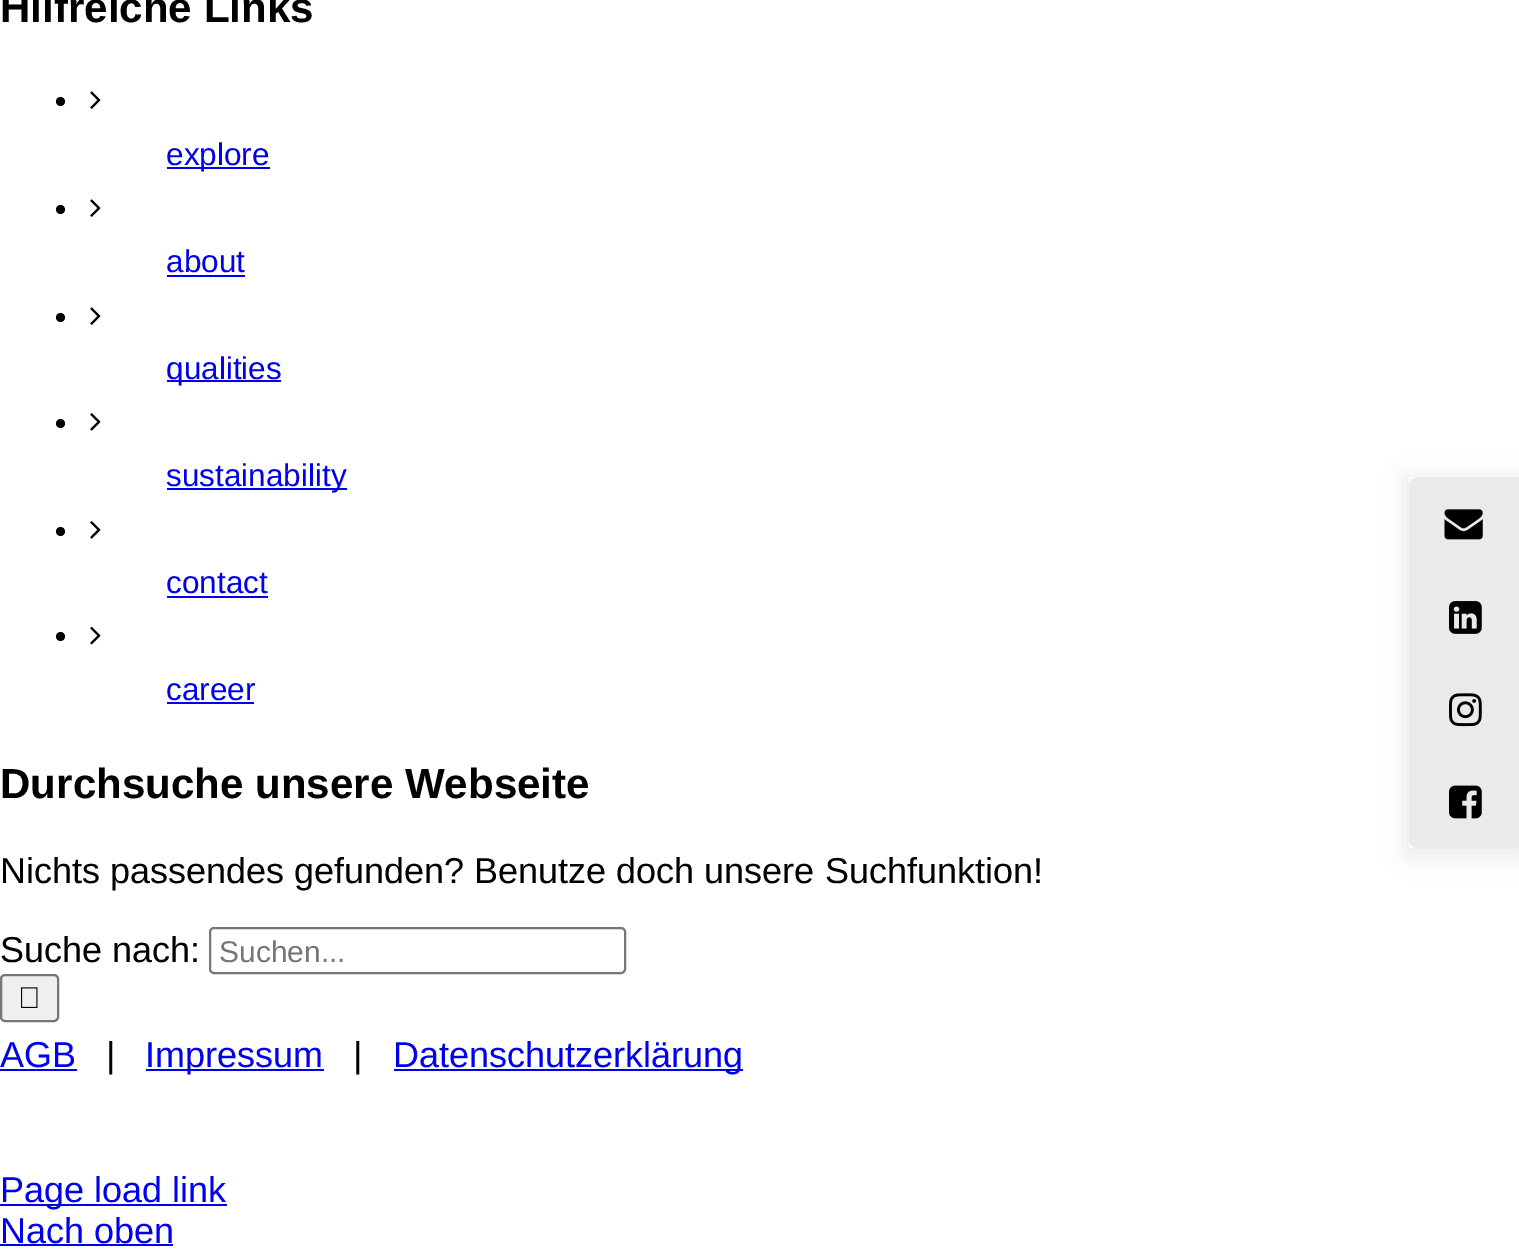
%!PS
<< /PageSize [1519 1250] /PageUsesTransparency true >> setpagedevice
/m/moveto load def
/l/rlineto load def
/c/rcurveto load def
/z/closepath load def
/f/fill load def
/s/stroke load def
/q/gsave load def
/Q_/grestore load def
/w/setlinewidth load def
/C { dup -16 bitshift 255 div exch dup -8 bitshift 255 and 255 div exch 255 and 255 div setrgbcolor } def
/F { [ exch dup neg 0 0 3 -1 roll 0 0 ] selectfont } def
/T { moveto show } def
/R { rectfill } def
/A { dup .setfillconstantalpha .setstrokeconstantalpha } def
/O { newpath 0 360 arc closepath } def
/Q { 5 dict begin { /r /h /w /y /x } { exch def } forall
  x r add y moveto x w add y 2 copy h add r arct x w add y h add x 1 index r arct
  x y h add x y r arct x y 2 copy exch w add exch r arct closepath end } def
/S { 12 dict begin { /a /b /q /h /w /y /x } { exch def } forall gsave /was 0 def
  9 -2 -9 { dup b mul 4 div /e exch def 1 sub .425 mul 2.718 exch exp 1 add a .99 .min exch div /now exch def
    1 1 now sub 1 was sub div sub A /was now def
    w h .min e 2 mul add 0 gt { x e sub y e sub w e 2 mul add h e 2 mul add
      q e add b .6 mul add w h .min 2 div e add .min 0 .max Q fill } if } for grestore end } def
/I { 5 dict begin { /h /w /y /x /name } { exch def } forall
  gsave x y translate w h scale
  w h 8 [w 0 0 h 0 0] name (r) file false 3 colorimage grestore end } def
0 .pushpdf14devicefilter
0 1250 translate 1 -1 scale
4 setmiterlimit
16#FFFFFF C
0 0 1519 1250 R
/LiberationSans-Bold 42.1 F
16#000000 C
(Hilfreiche Links) 0 22 T
60.5 101.5 4.5 O f
(1.rgb) 90 91 11 18 I
16#0000EE C
167 167 103 2 R
/LiberationSans-Regular 31.5 F
(explore) 166 165 T
16#000000 C
60.5 209.5 4.5 O f
(1.rgb) 90 199 11 18 I
16#0000EE C
(about) 166 272 T
167 275 78 2 R
16#000000 C
60.5 317.5 4.5 O f
(1.rgb) 90 307 11 18 I
16#0000EE C
167 380 114 2 R
(qualities) 166 379 T
16#000000 C
60.5 423.5 4.5 O f
(2.rgb) 90 413 11 18 I
16#0000EE C
167 488 180 2 R
(sustainability) 166 486 T
16#000000 C
60.5 531.5 4.5 O f
(2.rgb) 90 521 11 18 I
16#0000EE C
(contact) 166 593 T
167 596 101 2 R
16#000000 C
60.5 636.5 4.5 O f
(3.rgb) 90 626 11 19 I
16#0000EE C
(career) 166 700 T
167 702 87 2 R
/LiberationSans-Bold 42.1 F
16#000000 C
(Durchsuche unsere Webseite) 0 798 T
/LiberationSans-Regular 36 F
(Nichts passendes gefunden? Benutze doch unsere Suchfunktion!) 0 883 T
(Suche nach:) 0 962 T
16#767676 C
2 w
210 928 415 45 4 Q s
/LiberationSans-Regular 30 F
16#757575 C
(Suchen...) 219 962 T
16#EFEFEF C
1 975 57 46 4 Q q f Q_
16#767676 C
s
(4.rgb) 21 987 17 21 I
/LiberationSans-Regular 36 F
16#0000EE C
(AGB) 0 1067 T
0 1069 77 2 R
16#000000 C
(|) 106 1067 T
16#0000EE C
146 1069 178 2 R
(Impressum) 145 1067 T
16#000000 C
(|) 353 1067 T
16#0000EE C
394 1069 349 2 R
(Datenschutzerklärung) 393 1067 T
q
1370 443 m 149 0 l 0 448 l -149 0 l z 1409 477 m 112 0 l 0 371 l -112 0 l z eoclip newpath
16#000000 C
1404 477 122 380 0 11 .07 S
Q_
16#EAEAEA C
1418 477 m 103 0 l 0 92 l -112 0 l 0 -83 l 0 -5 4 -9 9 -9 c z f
(5.rgb) 1444 509 39 31 I
1409 569 110 187 R
(6.rgb) 1449 601 33 33 I
(7.rgb) 1449 693 33 34 I
1409 756 m 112 0 l 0 92 l -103 0 l -5 0 -9 -4 -9 -9 c z f
(8.rgb) 1449 785 33 34 I
16#0000EE C
0 1204 227 2 R
(Page load link) 0 1202 T
(Nach oben) 0 1243 T
0 1244 173 2 R
.poppdf14devicefilter showpage
